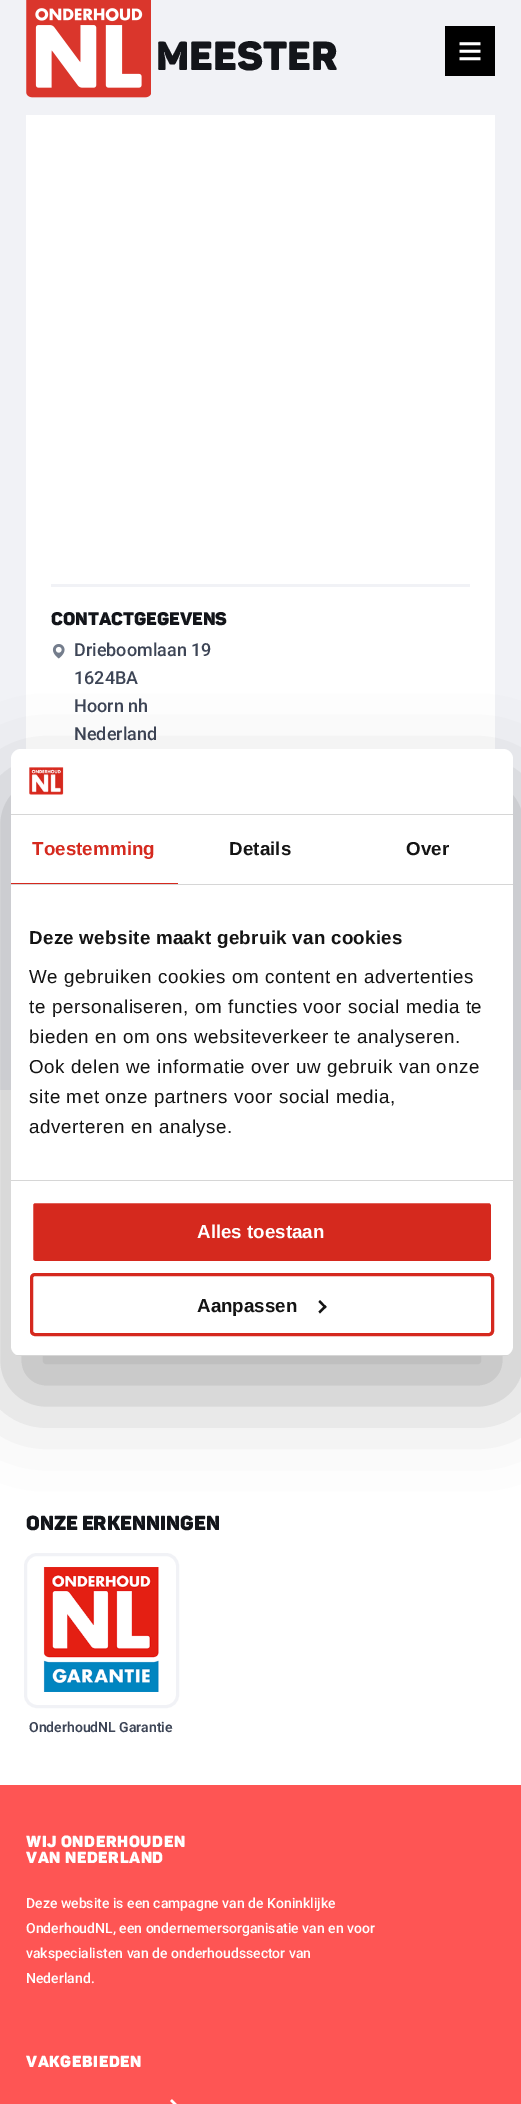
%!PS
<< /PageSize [521 2104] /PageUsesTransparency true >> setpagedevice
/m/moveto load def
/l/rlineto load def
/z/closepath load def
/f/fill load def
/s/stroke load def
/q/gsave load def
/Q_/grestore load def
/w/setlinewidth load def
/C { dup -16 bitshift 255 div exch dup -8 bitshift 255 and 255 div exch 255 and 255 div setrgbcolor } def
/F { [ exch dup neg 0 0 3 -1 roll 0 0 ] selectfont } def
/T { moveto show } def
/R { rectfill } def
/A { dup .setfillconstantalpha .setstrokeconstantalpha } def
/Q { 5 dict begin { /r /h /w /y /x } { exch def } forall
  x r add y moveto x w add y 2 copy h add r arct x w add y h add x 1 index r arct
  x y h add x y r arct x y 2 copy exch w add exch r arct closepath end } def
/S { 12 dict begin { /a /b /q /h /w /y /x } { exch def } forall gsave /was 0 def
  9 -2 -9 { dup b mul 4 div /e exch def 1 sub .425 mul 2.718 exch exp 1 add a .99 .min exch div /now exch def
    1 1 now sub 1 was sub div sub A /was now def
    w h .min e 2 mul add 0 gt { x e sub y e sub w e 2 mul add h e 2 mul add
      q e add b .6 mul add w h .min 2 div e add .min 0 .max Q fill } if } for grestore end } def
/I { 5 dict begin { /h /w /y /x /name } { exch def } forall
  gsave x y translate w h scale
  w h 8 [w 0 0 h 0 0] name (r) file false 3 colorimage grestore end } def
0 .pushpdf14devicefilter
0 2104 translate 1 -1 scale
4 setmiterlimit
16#FFFFFF C
0 0 521 2104 R
16#F1F2F6 C
0 0 521 1090 R
(1.rgb) 26 0 125 98 I
16#000000 C
445 26 50 50 R
(2.rgb) 459 42 22 19 I
/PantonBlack-Black 40 F
16#13151A C
(MEESTER) 156 70 T
16#FFFFFF C
26 115 469 634 R
16#F1F2F6 C
51 584 419 3 R
/PantonBlack-Black 18 F
16#13151A C
(CONTACTGEGEVENS) 51 625 T
(3.rgb) 52 644 13 15 I
/Roboto-Medium 18 F
16#3D4556 C
(Drieboomlaan 19) 74 656 T
(1624BA) 74 684 T
(Hoorn nh) 74 712 T
(Nederland) 74 740 T
/PantonBlack-Black 20 F
16#13151A C
(ONZE ERKENNINGEN) 26 1530 T
16#F1F2F6 C
3 w
25.5 1554.5 152 152 11.5 Q s
(4.rgb) 43 1567 116 125 I
/Roboto-SemiBold 14 F
16#3D4556 C
(OnderhoudNL Garantie) 29 1732 T
16#000000 C
11 789 502 607 10 42.5 .3 S
16#FFFFFF C
11 749 502 607 10 Q f
16#D6D6D6 C
11 814 502 1 R
(5.rgb) 29 767 35 28 I
11 884 502 1 R
16#D5291E C
11 883 167 1 R
/LiberationSans-Bold 18.75 F
32 855 m .1 0 (Toestemming) ashow
16#141414 C
229 855 m .1 0 (Details) ashow
406 855 m .1 0 (Over) ashow
16#D6D6D6 C
11 1180 502 1 R
16#141414 C
29 944 m .3 0 (Deze website maakt gebruik van cookies) ashow
/LiberationSans-Regular 18.75 F
29 983 m .62 0 (We gebruiken cookies om content en advertenties) ashow
29 1013 m .62 0 (te personaliseren, om functies voor social media te) ashow
29 1043 m .62 0 (bieden en om ons websiteverkeer te analyseren.) ashow
29 1073 m .62 0 (Ook delen we informatie over uw gebruik van onze) ashow
29 1103 m .62 0 (site met onze partners voor social media,) ashow
29 1133 m .62 0 (adverteren en analyse.) ashow
q
11 749 502 607 10 Q clip newpath
16#D6D6D6 C
11 1355 502 1 R
Q_
16#D5291E C
31.5 1201.5 461 61 3.5 Q q f Q_
16#FFFFFF C
s
/LiberationSans-Bold 18.75 F
(Alles toestaan) 197 1238 T
16#D5291E C
31.5 1274.5 461 60 3.5 Q s
16#141414 C
(Aanpassen) 197 1312 T
320 1300 m 6.5 7 l -1.5 1.5 l -6.5 -6.5 l z f
325 1305 m 1.5 2 l -6.5 6.5 l -1.5 -2 l z f
16#FE5554 C
0 1785 521 319 R
/PantonBlack-Black 16 F
16#FFFFFF C
26 1847 m .62 0 (WIJ ONDERHOUDEN) ashow
26 1863 m .62 0 (VAN NEDERLAND) ashow
/Roboto-Medium 14 F
(Deze website is een campagne van de Koninklijke) 26 1908 T
(OnderhoudNL, een ondernemersorganisatie van en voor) 26 1933 T
(vakspecialisten van de onderhoudssector van) 26 1958 T
(Nederland.) 26 1983 T
/PantonBlack-Black 16 F
26 2067 m .62 0 (VAKGEBIEDEN) ashow
(6.rgb) 170 2099 7 5 I
.poppdf14devicefilter showpage
